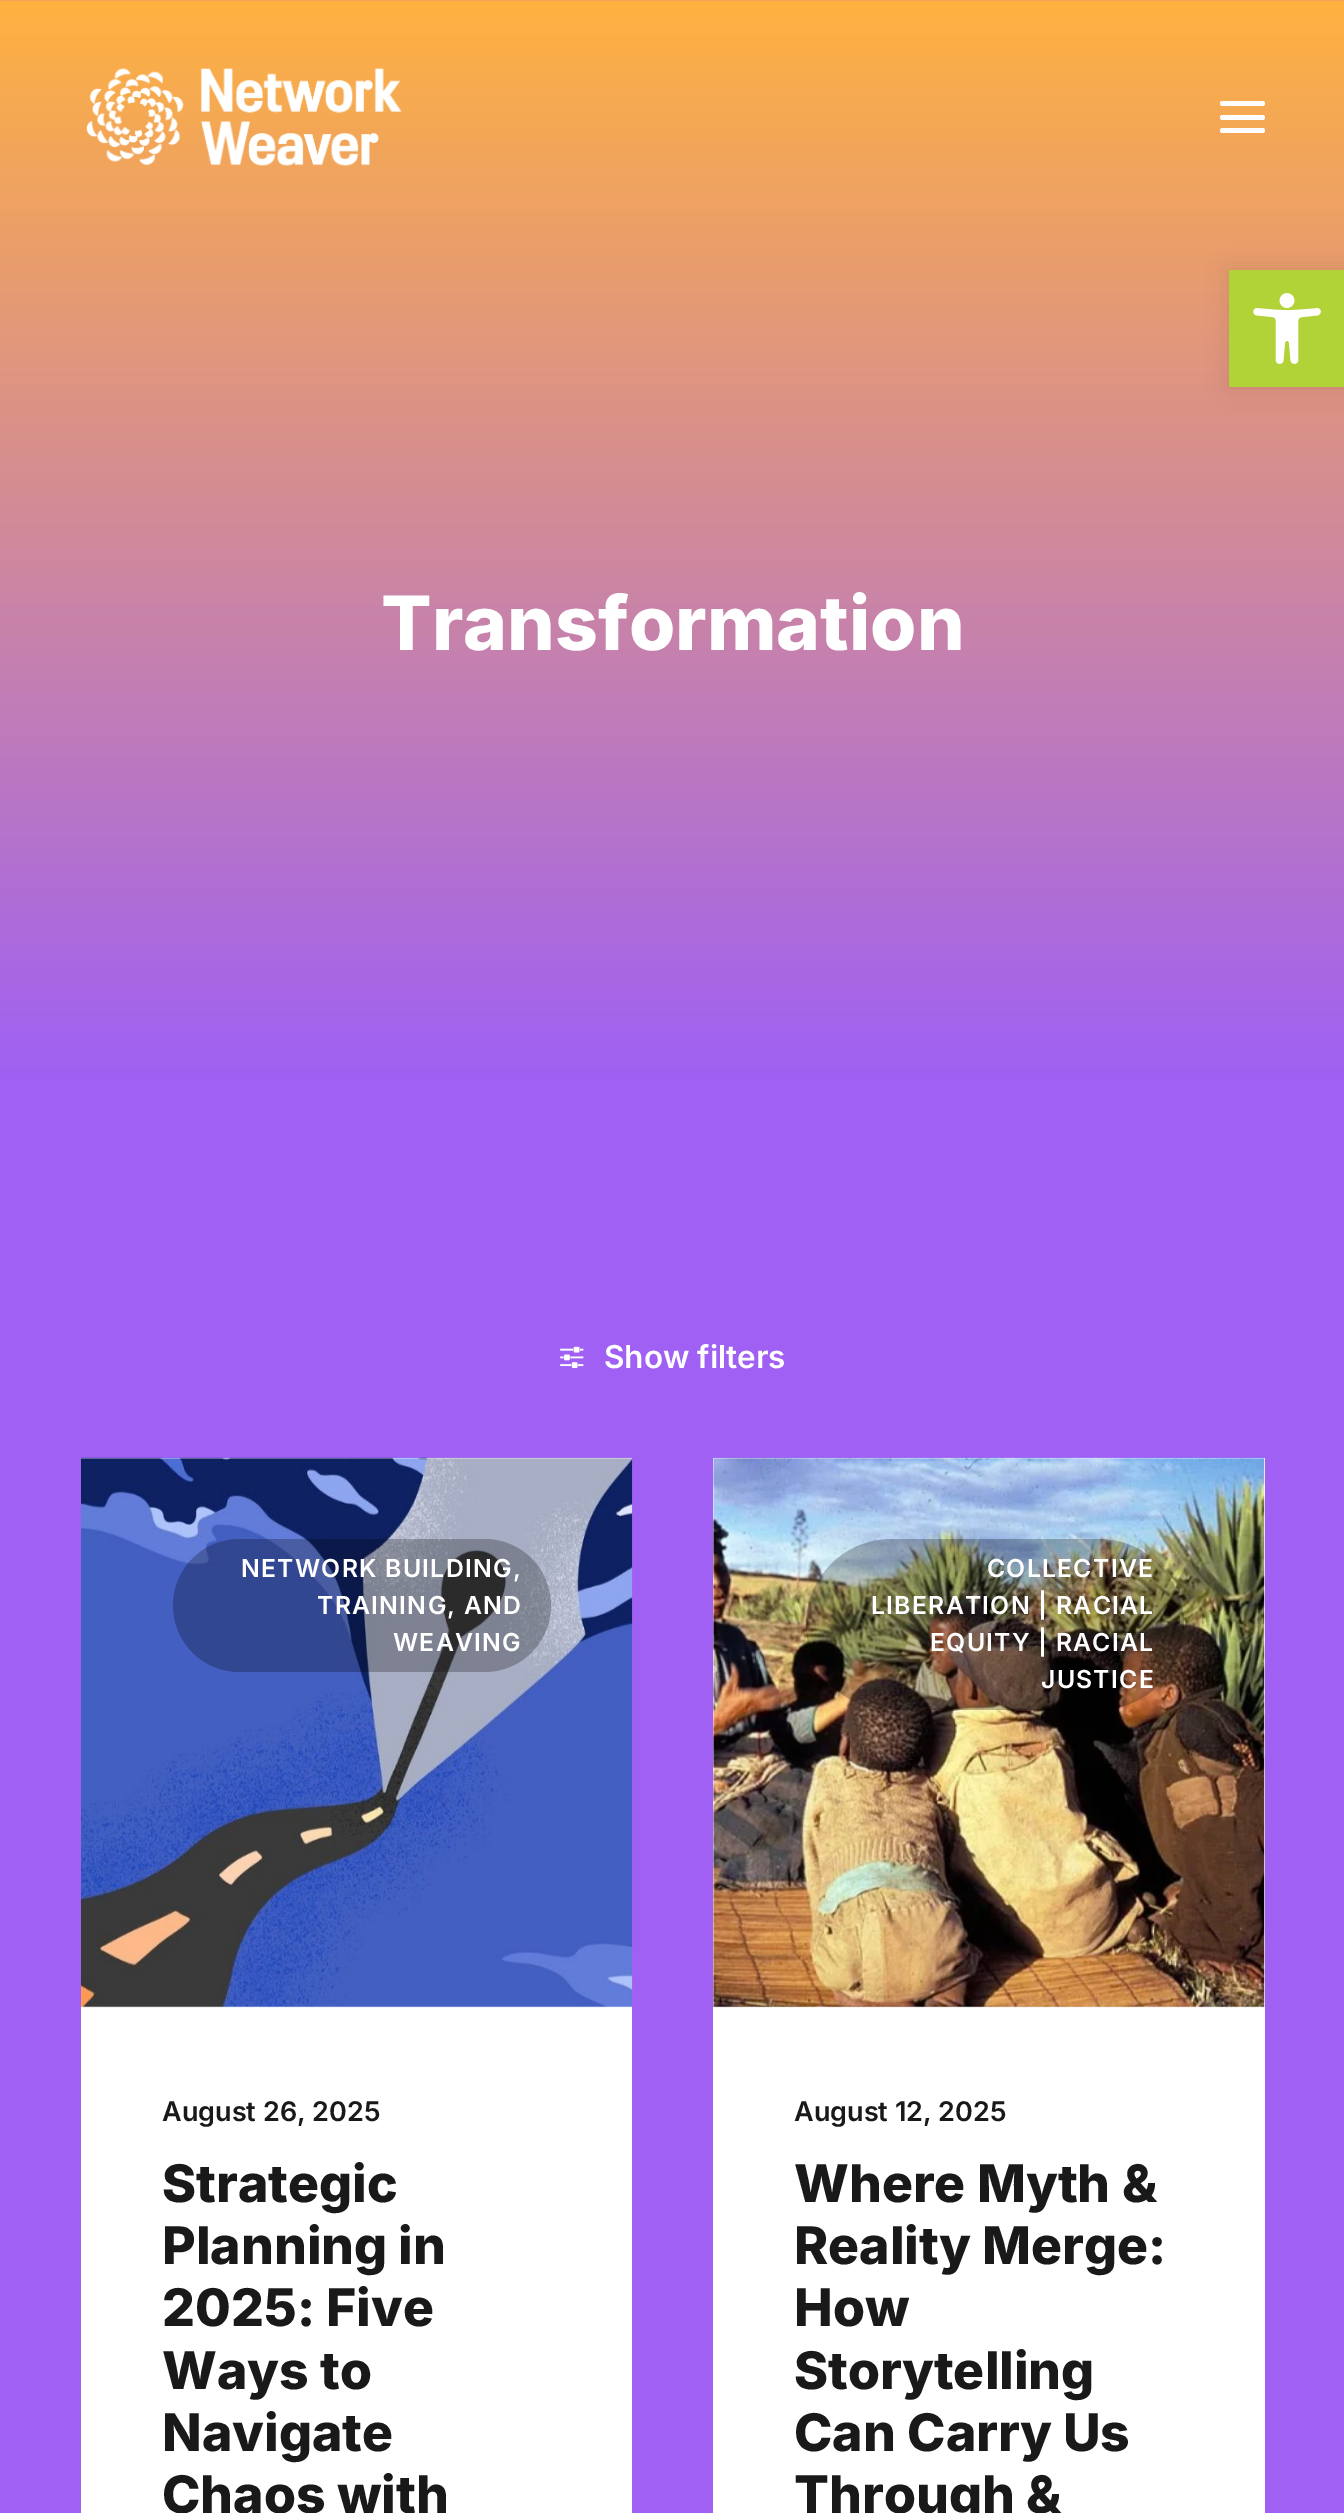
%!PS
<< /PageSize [1344 2513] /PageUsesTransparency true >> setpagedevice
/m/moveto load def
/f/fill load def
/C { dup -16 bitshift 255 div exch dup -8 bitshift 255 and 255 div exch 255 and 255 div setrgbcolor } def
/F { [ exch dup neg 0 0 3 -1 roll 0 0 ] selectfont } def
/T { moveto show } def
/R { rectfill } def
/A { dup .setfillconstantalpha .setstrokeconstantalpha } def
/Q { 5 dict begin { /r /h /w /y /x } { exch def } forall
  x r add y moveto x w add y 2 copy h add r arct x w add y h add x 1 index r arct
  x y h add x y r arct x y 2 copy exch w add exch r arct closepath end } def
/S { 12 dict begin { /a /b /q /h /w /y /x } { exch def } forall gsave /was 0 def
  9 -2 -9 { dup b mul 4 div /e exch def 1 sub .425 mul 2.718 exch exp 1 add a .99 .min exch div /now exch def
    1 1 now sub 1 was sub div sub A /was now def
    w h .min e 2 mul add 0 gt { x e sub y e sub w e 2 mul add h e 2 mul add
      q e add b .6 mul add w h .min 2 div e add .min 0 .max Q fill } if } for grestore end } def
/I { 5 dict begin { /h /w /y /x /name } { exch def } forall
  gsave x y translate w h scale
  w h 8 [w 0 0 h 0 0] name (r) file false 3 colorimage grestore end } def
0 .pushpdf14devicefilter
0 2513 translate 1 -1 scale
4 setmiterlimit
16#FFFFFF C
0 0 1344 2513 R
(3.rgb) 0 0 1344 1073 I
16#000000 C
1229 270 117 117 0 11 .1 S
16#B1D337 C
1229 270 115 117 R
(1.rgb) 1253 293 68 71 I
(2.rgb) 86 68 316 98 I
16#FFFFFF C
1220 115 45 5 2.5 Q f
1220 101 45 5 2.5 Q f
1220 128 45 5 2.5 Q f
/Inter-ExtraBold 75 F
(Transformation) 381 650 T
16#A060F4 C
0 1073 1344 1440 R
(4.rgb) 560 1346 24 22 I
/Inter-SemiBold 31.5 F
16#FFFFFF C
(Show filters) 604 1368 T
81 1458 551 1055 R
(5.rgb) 81 1457 552 551 I
0.25 A
16#000000 C
173 1539 378 133 66.5 Q f
/Inter-SemiBold 24.75 F
1 A
16#FFFFFF C
241 1577 m 1.25 0 (NETWORK BUILDING,) ashow
317 1614 m 1.25 0 (TRAINING, AND) ashow
393 1651 m 1.25 0 (WEAVING) ashow
/Inter-SemiBold 27 F
16#191919 C
(August 26, 2025) 162 2121 T
/Inter-ExtraBold 51.75 F
(Strategic) 162 2202 T
(Planning in) 162 2264 T
(2025: Five) 162 2326 T
(Ways to) 162 2389 T
(Navigate) 162 2451 T
(Chaos with) 162 2513 T
16#FFFFFF C
713 1458 552 1055 R
(6.rgb) 713 1457 552 551 I
0.25 A
16#000000 C
806 1539 378 171 85.5 Q f
/Inter-SemiBold 24.75 F
1 A
16#FFFFFF C
987 1577 m 1.25 0 (COLLECTIVE) ashow
871 1614 m 1.25 0 (LIBERATION | RACIAL) ashow
930 1651 m 1.25 0 (EQUITY | RACIAL) ashow
1041 1688 m 1.25 0 (JUSTICE) ashow
/Inter-SemiBold 27 F
16#191919 C
(August 12, 2025) 794 2121 T
/Inter-ExtraBold 51.75 F
(Where Myth &) 794 2202 T
(Reality Merge:) 794 2264 T
(How) 794 2326 T
(Storytelling) 794 2389 T
(Can Carry Us) 794 2451 T
(Through &) 794 2513 T
.poppdf14devicefilter showpage
